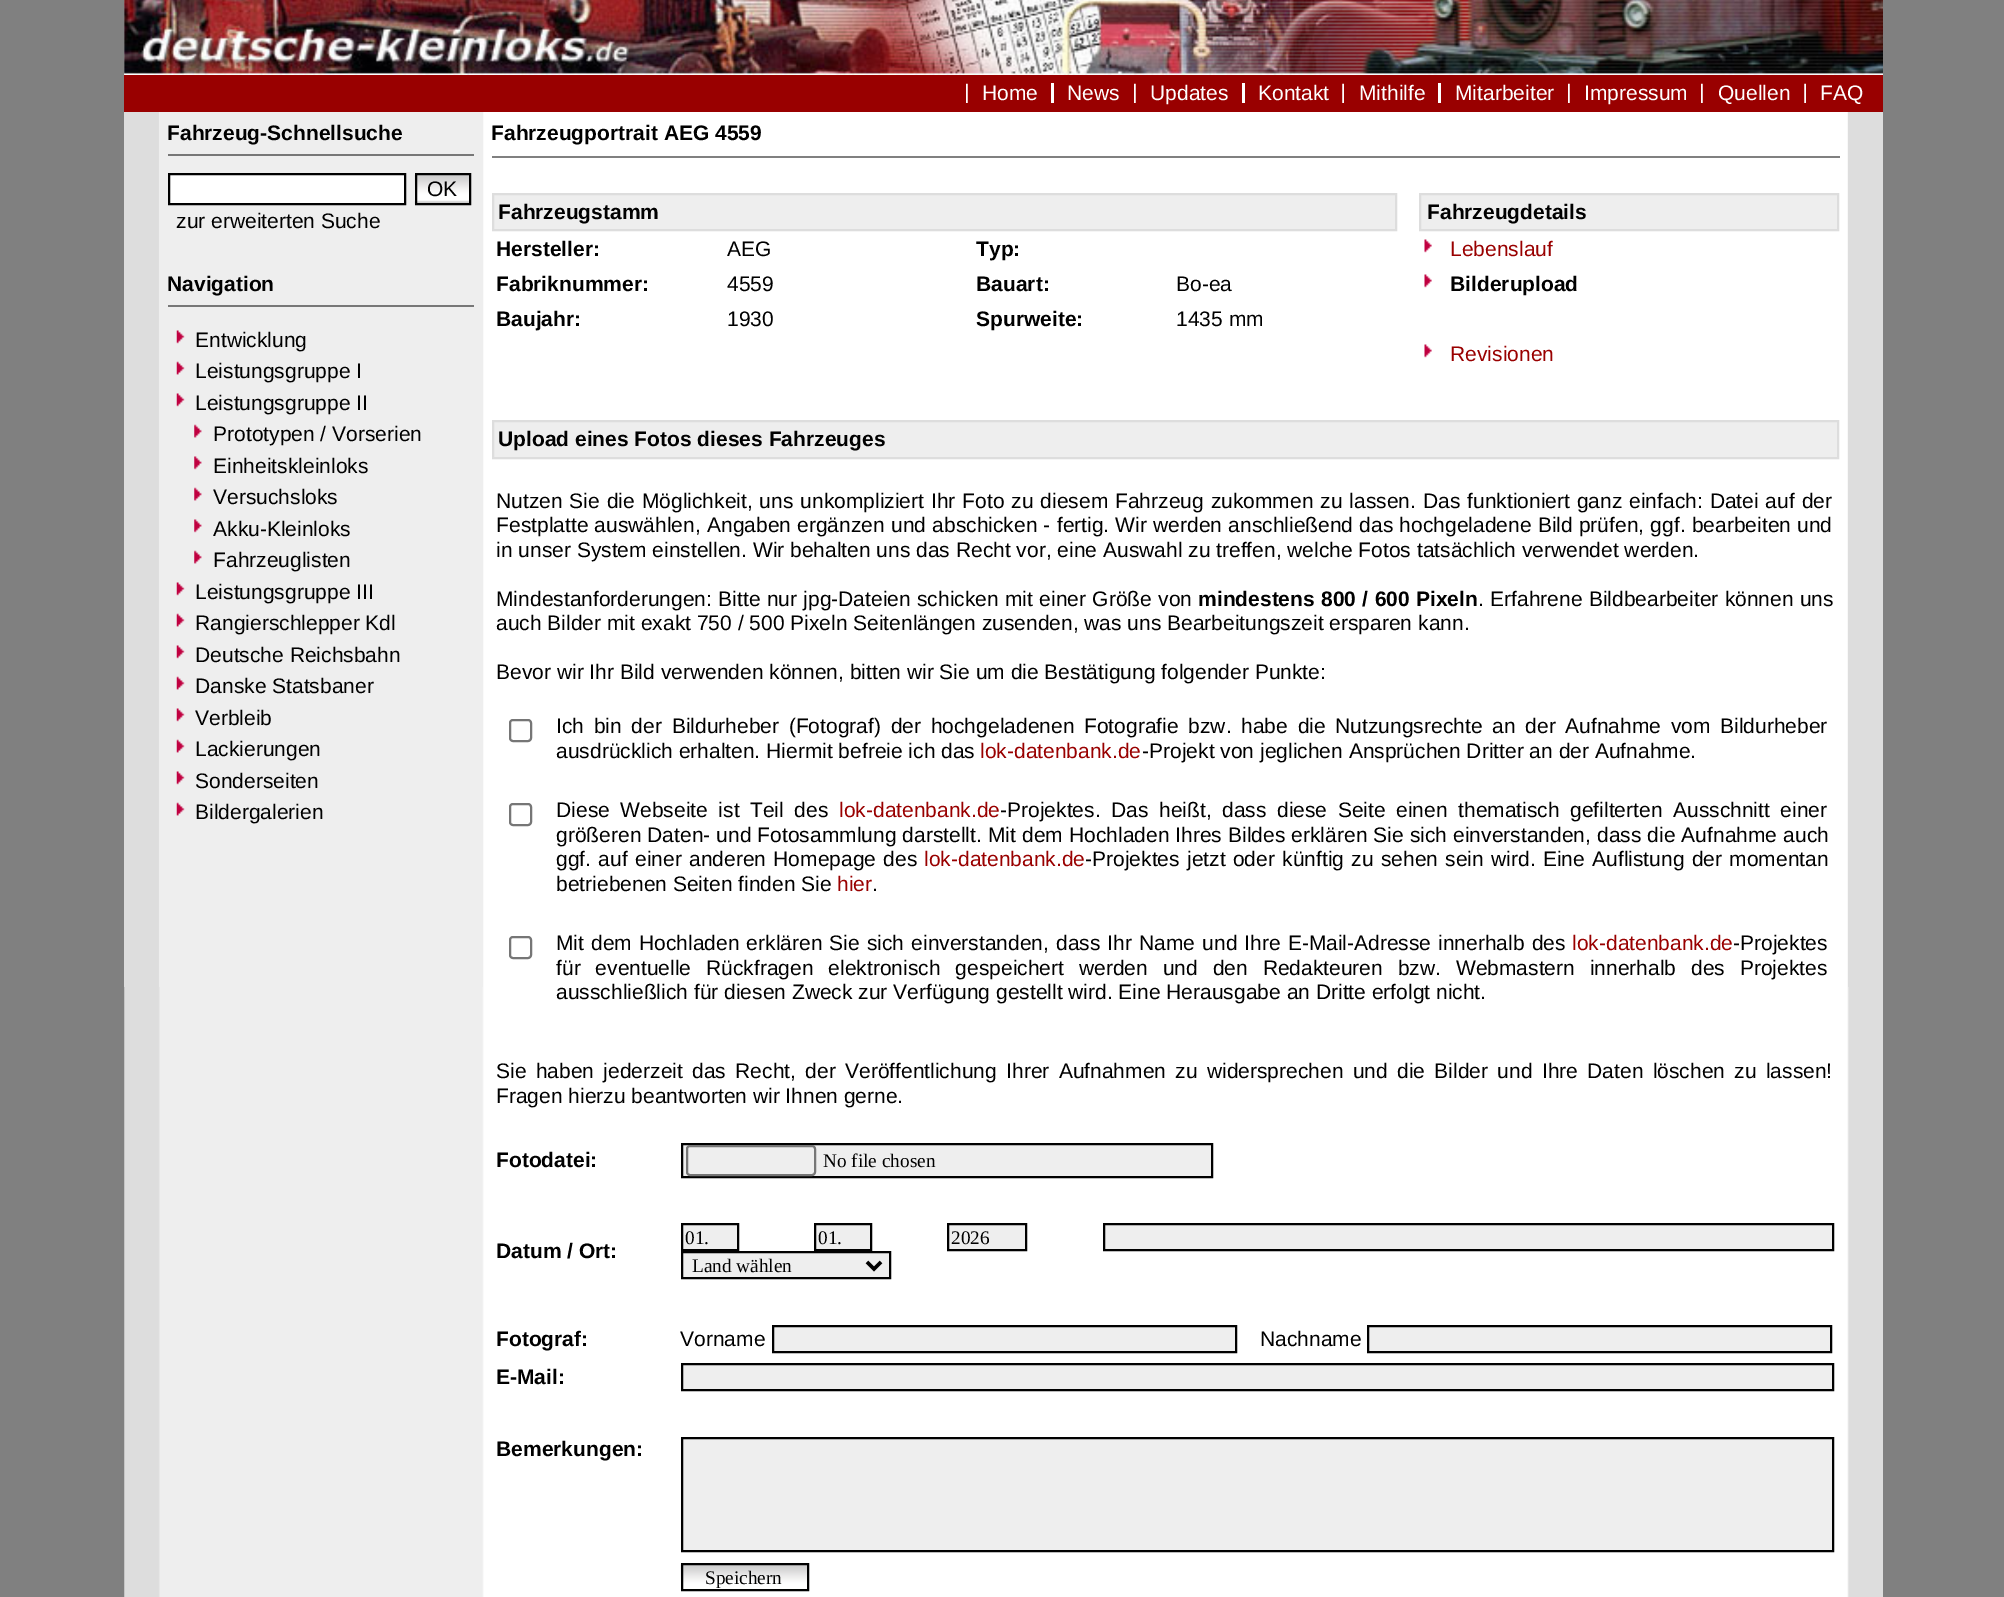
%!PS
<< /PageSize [2004 1597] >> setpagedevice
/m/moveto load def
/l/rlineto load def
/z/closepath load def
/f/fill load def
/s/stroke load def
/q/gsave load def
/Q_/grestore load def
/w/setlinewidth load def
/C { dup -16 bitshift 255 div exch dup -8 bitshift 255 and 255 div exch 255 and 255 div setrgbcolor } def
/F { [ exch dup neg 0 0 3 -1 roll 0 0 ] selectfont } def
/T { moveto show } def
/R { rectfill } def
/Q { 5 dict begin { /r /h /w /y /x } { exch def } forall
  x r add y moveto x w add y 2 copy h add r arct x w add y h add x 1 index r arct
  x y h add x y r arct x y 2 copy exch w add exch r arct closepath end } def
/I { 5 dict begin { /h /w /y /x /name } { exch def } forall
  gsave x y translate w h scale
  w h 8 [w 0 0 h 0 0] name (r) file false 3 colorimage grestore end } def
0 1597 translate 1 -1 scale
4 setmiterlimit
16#808080 C
0 0 2004 1597 R
(1.rgb) 124 0 1759 1597 I
(2.rgb) 124 0 1759 75 I
16#990000 C
124 75 1759 37 R
(3.rgb) 966 83 2 20 I
/LiberationSans-Regular 21 F
16#FFFFFF C
(Home) 982 100 T
(News) 1067 100 T
1051 83 3 20 R
(3.rgb) 1134 83 2 20 I
(Updates) 1150 100 T
(Kontakt) 1258 100 T
1242 83 3 20 R
(4.rgb) 1342 83 2 20 I
(Mithilfe) 1359 100 T
(Mitarbeiter) 1455 100 T
1438 83 3 20 R
(3.rgb) 1568 83 2 20 I
(Impressum) 1584 100 T
(3.rgb) 1701 83 2 20 I
(Quellen) 1718 100 T
(4.rgb) 1804 83 2 20 I
(FAQ) 1820 100 T
16#DDDDDD C
124 112 1 875 R
16#EEEEEE C
159 112 324 875 R
16#777777 C
168 154 306 2 R
/LiberationSans-Bold 21 F
16#000000 C
(Fahrzeug-Schnellsuche) 167 140 T
16#FFFFFF C
169 174 m 236 0 l 0 30 l -236 0 l z q f Q_
16#000000 C
2 w
s
(5.rgb) 414 173 55 31 I
416 174 54 30 rectstroke
/LiberationSans-Regular 21 F
(OK) 427 196 T
(zur erweiterten Suche) 176 228 T
16#777777 C
168 305 306 2 R
/LiberationSans-Bold 21 F
16#000000 C
(Navigation) 167 291 T
(6.rgb) 176 330 9 14 I
/LiberationSans-Regular 21 F
(Entwicklung) 195 347 T
(7.rgb) 176 361 9 14 I
(Leistungsgruppe I) 195 378 T
(6.rgb) 176 393 9 14 I
(Leistungsgruppe II) 195 410 T
(8.rgb) 194 424 8 14 I
(Prototypen / Vorserien) 213 441 T
(9.rgb) 194 456 8 14 I
(Einheitskleinloks) 213 473 T
(8.rgb) 194 487 8 14 I
(Versuchsloks) 213 504 T
(9.rgb) 194 519 8 14 I
(Akku-Kleinloks) 213 536 T
(8.rgb) 194 550 8 14 I
(Fahrzeuglisten) 213 567 T
(6.rgb) 176 582 9 14 I
(Leistungsgruppe III) 195 599 T
(7.rgb) 176 613 9 14 I
(Rangierschlepper Kdl) 195 630 T
(6.rgb) 176 645 9 14 I
(Deutsche Reichsbahn) 195 662 T
(7.rgb) 176 676 9 14 I
(Danske Statsbaner) 195 693 T
(6.rgb) 176 708 9 14 I
(Verbleib) 195 725 T
(7.rgb) 176 739 9 14 I
(Lackierungen) 195 756 T
(6.rgb) 176 771 9 14 I
(Sonderseiten) 195 788 T
(7.rgb) 176 802 9 14 I
(Bildergalerien) 195 819 T
/LiberationSans-Bold 21 F
(Fahrzeugportrait AEG 4559) 491 140 T
16#808080 C
492 156 1348 2 R
16#EEEEEE C
493 194 m 903 0 l 0 36 l -903 0 l z q f Q_
16#DDDDDD C
s
16#000000 C
(Fahrzeugstamm) 498 219 T
16#EEEEEE C
1420 194 m 418 0 l 0 36 l -418 0 l z q f Q_
16#DDDDDD C
s
16#000000 C
(Fahrzeugdetails) 1427 219 T
(Hersteller:) 496 256 T
/LiberationSans-Regular 21 F
(AEG) 727 256 T
/LiberationSans-Bold 21 F
(Typ:) 976 256 T
(10.rgb) 1424 239 8 14 I
/LiberationSans-Regular 21 F
16#990000 C
(Lebenslauf) 1450 256 T
/LiberationSans-Bold 21 F
16#000000 C
(Fabriknummer:) 496 291 T
/LiberationSans-Regular 21 F
(4559) 727 291 T
/LiberationSans-Bold 21 F
(Bauart:) 976 291 T
/LiberationSans-Regular 21 F
(Bo-ea) 1176 291 T
(10.rgb) 1424 274 8 14 I
/LiberationSans-Bold 21 F
(Bilderupload) 1450 291 T
(Baujahr:) 496 326 T
/LiberationSans-Regular 21 F
(1930) 727 326 T
/LiberationSans-Bold 21 F
(Spurweite:) 976 326 T
/LiberationSans-Regular 21 F
(1435 mm) 1176 326 T
(10.rgb) 1424 344 8 14 I
16#990000 C
(Revisionen) 1450 361 T
16#EEEEEE C
493 421 m 1345 0 l 0 37 l -1345 0 l z q f Q_
16#DDDDDD C
s
/LiberationSans-Bold 21 F
16#000000 C
(Upload eines Fotos dieses Fahrzeuges) 498 446 T
/LiberationSans-Regular 21 F
496 508 m 1.1 0 32 (Nutzen Sie die Möglichkeit, uns unkompliziert Ihr Foto zu diesem Fahrzeug zukommen zu lassen. Das funktioniert ganz einfach: Datei auf der) widthshow
496 532 m .4 0 32 (Festplatte auswählen, Angaben ergänzen und abschicken - fertig. Wir werden anschließend das hochgeladene Bild prüfen, ggf. bearbeiten und) widthshow
(in unser System einstellen. Wir behalten uns das Recht vor, eine Auswahl zu treffen, welche Fotos tatsächlich verwendet werden.) 496 557 T
496 606 m .5 0 32 (Mindestanforderungen: Bitte nur jpg-Dateien schicken mit einer Größe von) widthshow
/LiberationSans-Bold 21 F
1198 606 m .5 0 32 (mindestens 800 / 600 Pixeln) widthshow
/LiberationSans-Regular 21 F
1478 606 m .5 0 32 (. Erfahrene Bildbearbeiter können uns) widthshow
(auch Bilder mit exakt 750 / 500 Pixeln Seitenlängen zusenden, was uns Bearbeitungszeit ersparen kann.) 496 630 T
(Bevor wir Ihr Bild verwenden können, bitten wir Sie um die Bestätigung folgender Punkte:) 496 679 T
16#767676 C
510 720 21 21 3 Q s
16#000000 C
556 733 m 3.9 0 32 (Ich bin der Bildurheber \(Fotograf\) der hochgeladenen Fotografie bzw. habe die Nutzungsrechte an der Aufnahme vom Bildurheber) widthshow
(ausdrücklich erhalten. Hiermit befreie ich das) 556 758 T
16#990000 C
(lok-datenbank.de) 980 758 T
16#000000 C
(-Projekt von jeglichen Ansprüchen Dritter an der Aufnahme.) 1142 758 T
16#767676 C
510 804 21 21 3 Q s
16#000000 C
556 817 m 4.75 0 32 (Diese Webseite ist Teil des) widthshow
16#990000 C
(lok-datenbank.de) 839 817 T
16#000000 C
1000 817 m 4.75 0 32 (-Projektes. Das heißt, dass diese Seite einen thematisch gefilterten Ausschnitt einer) widthshow
556 842 m .25 0 32 (größeren Daten- und Fotosammlung darstellt. Mit dem Hochladen Ihres Bildes erklären Sie sich einverstanden, dass die Aufnahme auch) widthshow
556 866 m 1.5 0 32 (ggf. auf einer anderen Homepage des) widthshow
16#990000 C
(lok-datenbank.de) 924 866 T
16#000000 C
1085 866 m 1.5 0 32 (-Projektes jetzt oder künftig zu sehen sein wird. Eine Auflistung der momentan) widthshow
(betriebenen Seiten finden Sie) 556 891 T
16#990000 C
(hier) 837 891 T
16#000000 C
(.) 872 891 T
16#767676 C
510 937 21 21 3 Q s
16#000000 C
556 950 m 1.25 0 32 (Mit dem Hochladen erklären Sie sich einverstanden, dass Ihr Name und Ihre E-Mail-Adresse innerhalb des) widthshow
16#990000 C
(lok-datenbank.de) 1572 950 T
16#000000 C
(-Projektes) 1733 950 T
556 975 m 9.1 0 32 (für eventuelle Rückfragen elektronisch gespeichert werden und den Redakteuren bzw. Webmastern innerhalb des Projektes) widthshow
(ausschließlich für diesen Zweck zur Verfügung gestellt wird. Eine Herausgabe an Dritte erfolgt nicht.) 556 999 T
496 1078 m 3.5 0 32 (Sie haben jederzeit das Recht, der Veröffentlichung Ihrer Aufnahmen zu widersprechen und die Bilder und Ihre Daten löschen zu lassen!) widthshow
(Fragen hierzu beantworten wir Ihnen gerne.) 496 1103 T
/LiberationSans-Bold 21 F
(Fotodatei:) 496 1167 T
16#EEEEEE C
682 1144 m 530 0 l 0 33 l -530 0 l z q f Q_
16#000000 C
s
16#767676 C
687 1146 128 29 3 Q s
/LiberationSerif-Regular 19.25 F
16#000000 C
(No file chosen) 823 1167 T
/LiberationSans-Bold 21 F
(Datum / Ort:) 496 1258 T
16#EEEEEE C
682 1224 m 56 0 l 0 26 l -56 0 l z q f Q_
16#000000 C
s
/LiberationSerif-Regular 19.25 F
(01.) 685 1244 T
16#EEEEEE C
815 1224 m 56 0 l 0 26 l -56 0 l z q f Q_
16#000000 C
s
(01.) 818 1244 T
16#EEEEEE C
948 1224 m 78 0 l 0 26 l -78 0 l z q f Q_
16#000000 C
s
(2026) 951 1244 T
16#EEEEEE C
1104 1224 m 729 0 l 0 26 l -729 0 l z q f Q_
16#000000 C
s
16#EEEEEE C
682 1252 m 208 0 l 0 26 l -208 0 l z q f Q_
16#000000 C
s
3.5 w
867 1262 m 7 7 l 7 -7 l s
(Land wählen) 692 1272 T
/LiberationSans-Bold 21 F
(Fotograf:) 496 1346 T
/LiberationSans-Regular 21 F
(Vorname) 680 1346 T
16#EEEEEE C
773 1326 m 463 0 l 0 26 l -463 0 l z q f Q_
16#000000 C
2 w
s
(Nachname) 1260 1346 T
16#EEEEEE C
1368 1326 m 463 0 l 0 26 l -463 0 l z q f Q_
16#000000 C
s
/LiberationSans-Bold 21 F
(E-Mail:) 496 1384 T
16#EEEEEE C
682 1364 m 1151 0 l 0 26 l -1151 0 l z q f Q_
16#000000 C
s
(Bemerkungen:) 496 1456 T
16#EEEEEE C
682 1438 m 1151 0 l 0 113 l -1151 0 l z q f Q_
16#000000 C
s
(11.rgb) 680 1563 127 27 I
682 1564 126 26 rectstroke
/LiberationSerif-Regular 19.25 F
(Speichern) 705 1584 T
16#DDDDDD C
1848 112 1 875 R
showpage
